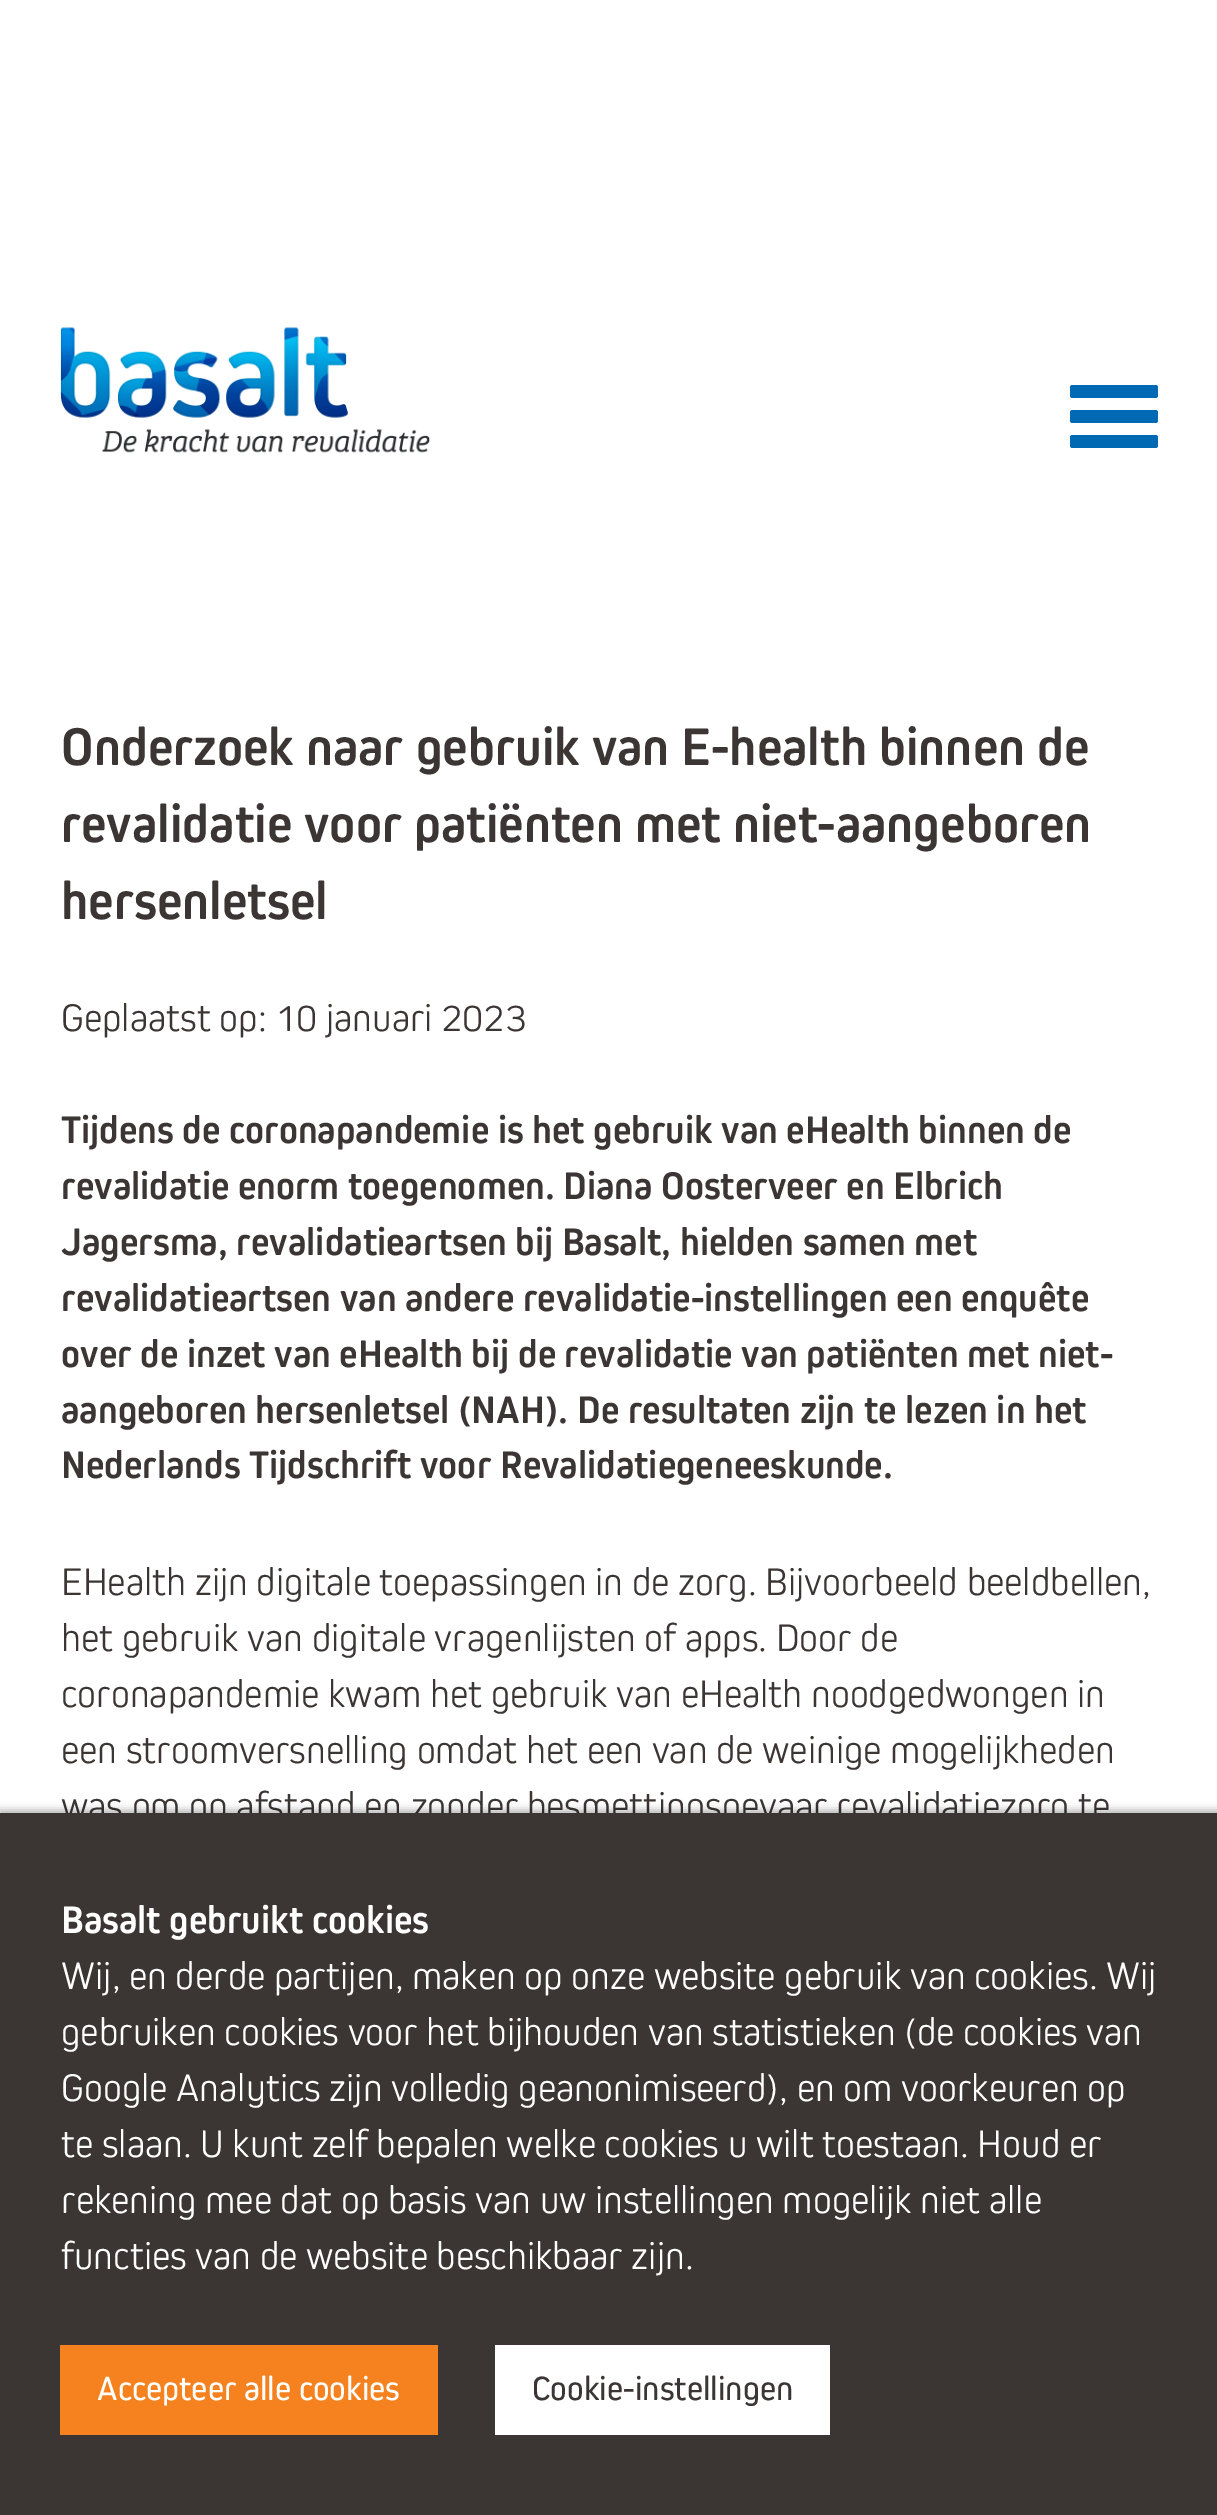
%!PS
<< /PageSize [1217 2515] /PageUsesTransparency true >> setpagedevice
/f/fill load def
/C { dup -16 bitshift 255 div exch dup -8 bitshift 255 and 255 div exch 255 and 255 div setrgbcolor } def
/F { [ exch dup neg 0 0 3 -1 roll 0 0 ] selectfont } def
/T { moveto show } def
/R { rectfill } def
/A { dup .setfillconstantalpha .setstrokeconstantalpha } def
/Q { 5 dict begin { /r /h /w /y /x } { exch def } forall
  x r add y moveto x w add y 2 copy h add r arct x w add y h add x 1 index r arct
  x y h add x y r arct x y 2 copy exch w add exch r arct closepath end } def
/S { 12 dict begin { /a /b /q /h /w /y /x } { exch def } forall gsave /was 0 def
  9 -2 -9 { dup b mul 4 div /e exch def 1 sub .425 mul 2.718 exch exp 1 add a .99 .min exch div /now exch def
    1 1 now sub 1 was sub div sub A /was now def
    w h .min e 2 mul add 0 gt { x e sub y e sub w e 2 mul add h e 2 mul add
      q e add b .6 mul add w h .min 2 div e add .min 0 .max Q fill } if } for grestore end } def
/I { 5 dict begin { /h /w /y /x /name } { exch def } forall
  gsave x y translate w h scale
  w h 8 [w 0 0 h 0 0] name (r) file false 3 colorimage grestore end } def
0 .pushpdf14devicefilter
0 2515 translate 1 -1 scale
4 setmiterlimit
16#FFFFFF C
0 0 1217 2515 R
(1.rgb) 60 327 370 126 I
16#0069B4 C
1070 410 88 13 2.5 Q f
1070 385 88 13 2.5 Q f
1070 435 88 13 2.5 Q f
/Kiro-Bold 55 F
16#3B3533 C
(Onderzoek naar gebruik van E-health binnen de) 61 765 T
(revalidatie voor patiënten met niet-aangeboren) 61 842 T
(hersenletsel) 61 919 T
/Kiro-Light 40 F
(Geplaatst op: 10 januari 2023) 61 1031 T
/Kiro-Bold 40 F
(Tijdens de coronapandemie is het gebruik van eHealth binnen de) 61 1143 T
(revalidatie enorm toegenomen. Diana Oosterveer en Elbrich) 61 1199 T
(Jagersma, revalidatieartsen bij Basalt, hielden samen met) 61 1255 T
(revalidatieartsen van andere revalidatie-instellingen een enquête) 61 1311 T
(over de inzet van eHealth bij de revalidatie van patiënten met niet-) 61 1367 T
(aangeboren hersenletsel \(NAH\). De resultaten zijn te lezen in het) 61 1423 T
(Nederlands Tijdschrift voor Revalidatiegeneeskunde.) 61 1478 T
/Kiro-Light 40 F
(EHealth zijn digitale toepassingen in de zorg. Bijvoorbeeld beeldbellen,) 61 1595 T
(het gebruik van digitale vragenlijsten of apps. Door de) 61 1651 T
(coronapandemie kwam het gebruik van eHealth noodgedwongen in) 61 1707 T
(een stroomversnelling omdat het een van de weinige mogelijkheden) 61 1763 T
(was om op afstand en zonder besmettingsgevaar revalidatiezorg te) 61 1819 T
16#000000 C
0 1810 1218 703 0 4 .3 S
16#3B3533 C
0 1813 1217 702 R
/Kiro-Bold 40 F
16#FFFFFF C
(Basalt gebruikt cookies) 61 1933 T
/Kiro-Light 40 F
(Wij, en derde partijen, maken op onze website gebruik van cookies. Wij) 61 1989 T
(gebruiken cookies voor het bijhouden van statistieken \(de cookies van) 61 2045 T
(Google Analytics zijn volledig geanonimiseerd\), en om voorkeuren op) 61 2101 T
(te slaan. U kunt zelf bepalen welke cookies u wilt toestaan. Houd er) 61 2157 T
(rekening mee dat op basis van uw instellingen mogelijk niet alle) 61 2213 T
(functies van de website beschikbaar zijn.) 61 2269 T
16#F5821F C
60 2345 378 90 R
/Kiro-Regular 35 F
16#FFFFFF C
(Accepteer alle cookies) 97 2400 T
495 2345 335 90 R
16#3B3533 C
(Cookie-instellingen) 532 2400 T
.poppdf14devicefilter showpage
